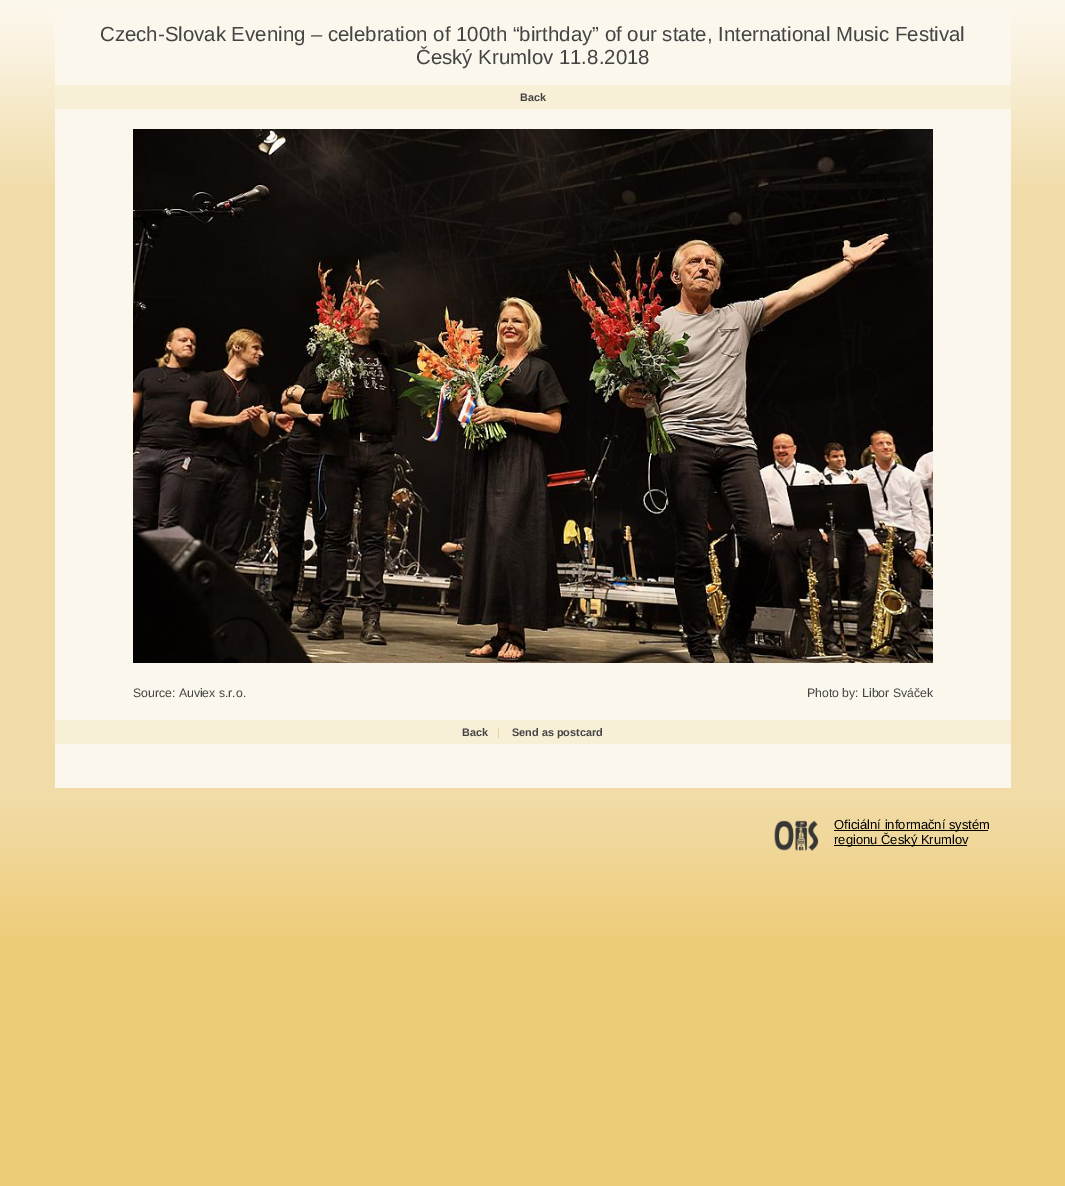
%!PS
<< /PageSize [1065 1186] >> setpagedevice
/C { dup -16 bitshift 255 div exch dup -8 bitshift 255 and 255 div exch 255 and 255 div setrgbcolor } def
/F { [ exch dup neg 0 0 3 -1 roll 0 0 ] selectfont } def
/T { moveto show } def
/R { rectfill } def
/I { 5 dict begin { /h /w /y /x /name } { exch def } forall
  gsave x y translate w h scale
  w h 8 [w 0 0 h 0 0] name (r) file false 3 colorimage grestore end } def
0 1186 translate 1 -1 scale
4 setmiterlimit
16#EECB77 C
0 0 1065 1186 R
16#F1DCA9 C
0 184 1065 604 R
(1.rgb) 0 0 1065 184 I
16#FBF7ED C
55 8 956 780 R
/LiberationSans-Regular 20.4 F
16#444444 C
(Czech-Slovak Evening – celebration of 100th “birthday” of our state, International Music Festival) 100 41 T
(Český Krumlov 11.8.2018) 416 64 T
16#F8EFD7 C
55 85 956 24 R
/LiberationSans-Bold 10.9 F
16#444444 C
(Back) 520 101 T
(2.rgb) 133 129 800 534 I
/LiberationSans-Regular 12.25 F
(Source: Auviex s.r.o.) 133 697 T
(Photo by: Libor Sváček) 807 697 T
16#F8EFD7 C
55 720 956 24 R
/LiberationSans-Bold 10.9 F
16#444444 C
(Back) 462 736 T
/LiberationSans-Regular 10.9 F
16#E1CA97 C
(|) 497 736 T
/LiberationSans-Bold 10.9 F
16#444444 C
(Send as postcard) 512 736 T
(3.rgb) 0 788 1065 149 I
(4.rgb) 774 820 45 32 I
16#000000 C
834 830 154 1 R
/LiberationSans-Regular 13 F
(Oficiální informační systém) 834 829 T
834 845 133 1 R
(regionu Český Krumlov) 834 844 T
showpage
